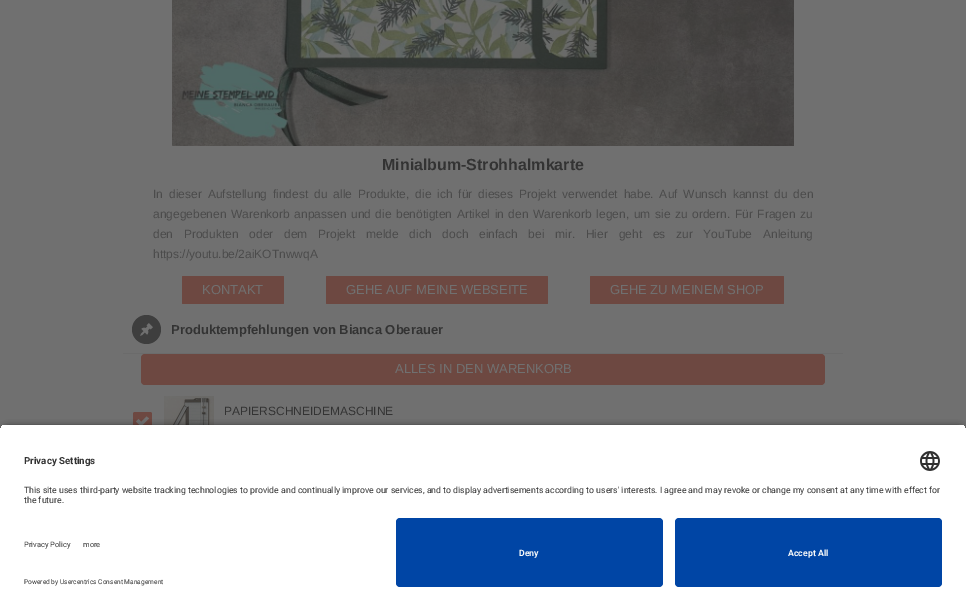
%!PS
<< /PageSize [966 611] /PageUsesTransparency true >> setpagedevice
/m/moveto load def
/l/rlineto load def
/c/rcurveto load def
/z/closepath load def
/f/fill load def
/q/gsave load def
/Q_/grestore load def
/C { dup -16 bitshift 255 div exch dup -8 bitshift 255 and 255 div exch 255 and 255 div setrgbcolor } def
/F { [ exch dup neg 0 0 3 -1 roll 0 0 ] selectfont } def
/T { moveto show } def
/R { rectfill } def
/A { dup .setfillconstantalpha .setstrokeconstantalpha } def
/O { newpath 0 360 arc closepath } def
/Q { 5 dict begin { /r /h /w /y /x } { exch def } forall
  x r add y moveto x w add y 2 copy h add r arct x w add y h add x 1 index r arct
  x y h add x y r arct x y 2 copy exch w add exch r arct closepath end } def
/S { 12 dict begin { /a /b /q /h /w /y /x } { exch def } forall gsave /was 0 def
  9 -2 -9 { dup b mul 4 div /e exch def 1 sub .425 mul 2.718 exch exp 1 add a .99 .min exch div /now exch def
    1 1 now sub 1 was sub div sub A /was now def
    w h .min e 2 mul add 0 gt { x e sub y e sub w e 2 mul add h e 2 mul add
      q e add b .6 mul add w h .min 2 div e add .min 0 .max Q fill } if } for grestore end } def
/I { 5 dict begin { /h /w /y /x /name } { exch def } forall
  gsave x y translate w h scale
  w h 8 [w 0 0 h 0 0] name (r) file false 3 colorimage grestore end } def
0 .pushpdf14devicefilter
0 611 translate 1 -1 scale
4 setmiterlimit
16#707070 C
0 0 966 611 R
(1.rgb) 172 0 622 146 I
/LiberationSans-Bold 16 F
16#333333 C
(Minialbum-Strohhalmkarte) 382 170 T
/LiberationSans-Regular 12 F
16#4B4B4B C
153 198 m 2.6 0 32 (In dieser Aufstellung findest du alle Produkte, die ich für dieses Projekt verwendet habe. Auf Wunsch kannst du den) widthshow
153 218 m 1.25 0 32 (angegebenen Warenkorb anpassen und die benötigten Artikel in den Warenkorb legen, um sie zu ordern. Für Fragen zu) widthshow
153 238 m 7.4 0 32 (den Produkten oder dem Projekt melde dich doch einfach bei mir. Hier geht es zur YouTube Anleitung) widthshow
(https://youtu.be/2aiKOTnwwqA) 153 258 T
16#6D4841 C
182 276 102 28 1 Q f
/LiberationSans-Regular 13 F
16#707070 C
(KONTAKT) 202 294 T
16#6D4841 C
326 276 222 28 1 Q f
16#707070 C
(GEHE AUF MEINE WEBSEITE) 346 294 T
16#6D4841 C
590 276 194 28 1 Q f
16#707070 C
(GEHE ZU MEINEM SHOP) 610 294 T
16#6B6B6B C
123 353 720 1 R
16#3E3E3E C
146.5 329.5 14.5 O f
(2.rgb) 140 323 13 13 I
/LiberationSans-Bold 13 F
16#333333 C
(Produktempfehlungen von Bianca Oberauer) 171 334 T
16#6D4841 C
141 354 684 31 4 Q f
/LiberationSans-Regular 13 F
16#707070 C
(ALLES IN DEN WARENKORB) 395 373 T
(3.rgb) 164 396 50 29 I
/LiberationSans-Regular 12 F
16#333333 C
(PAPIERSCHNEIDEMASCHINE) 224 415 T
16#6D4841 C
133 412 19 19 2 Q f
16#707070 C
146.5 416.5 m 2.5 2 l -8 8 l -2 -2.5 l z f
138.5 419 m 4.5 5 l -2 2.5 l -5 -5 l z f
16#000000 C
0 427 966 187 8 3.5 .8 S
q
8 424 m 950 0 l 4.5 0 8 3.5 8 8 c 0 78 l -966 0 l 0 -78 l 0 -4.5 3.5 -8 8 -8 c z clip newpath
16#FFFFFF C
0 425 966 85 R
Q_
/Roboto-Bold 9.75 F
16#333333 C
(Privacy Settings) 24 464 T
(4.rgb) 920 451 20 20 I
/Roboto-Regular 8.75 F
(This site uses third-party website tracking technologies to provide and continually improve our services, and to display advertisements according to users' interests. I agree and may revoke or change my consent at any time with effect for) 24 493 T
(the future.) 24 503 T
16#FFFFFF C
0 510 966 101 R
/Roboto-Regular 7.5 F
16#333333 C
(Privacy Policy) 24 547 T
(more) 83 547 T
/Roboto-Regular 6.6 F
(Powered by Usercentrics Consent Management) 24 584 T
16#0045A5 C
396 518 267 69 4 Q f
/Roboto-Bold 8.75 F
16#FAFAFA C
(Deny) 519 556 T
16#0045A5 C
675 518 267 69 4 Q f
16#FAFAFA C
(Accept All) 788 556 T
.poppdf14devicefilter showpage
